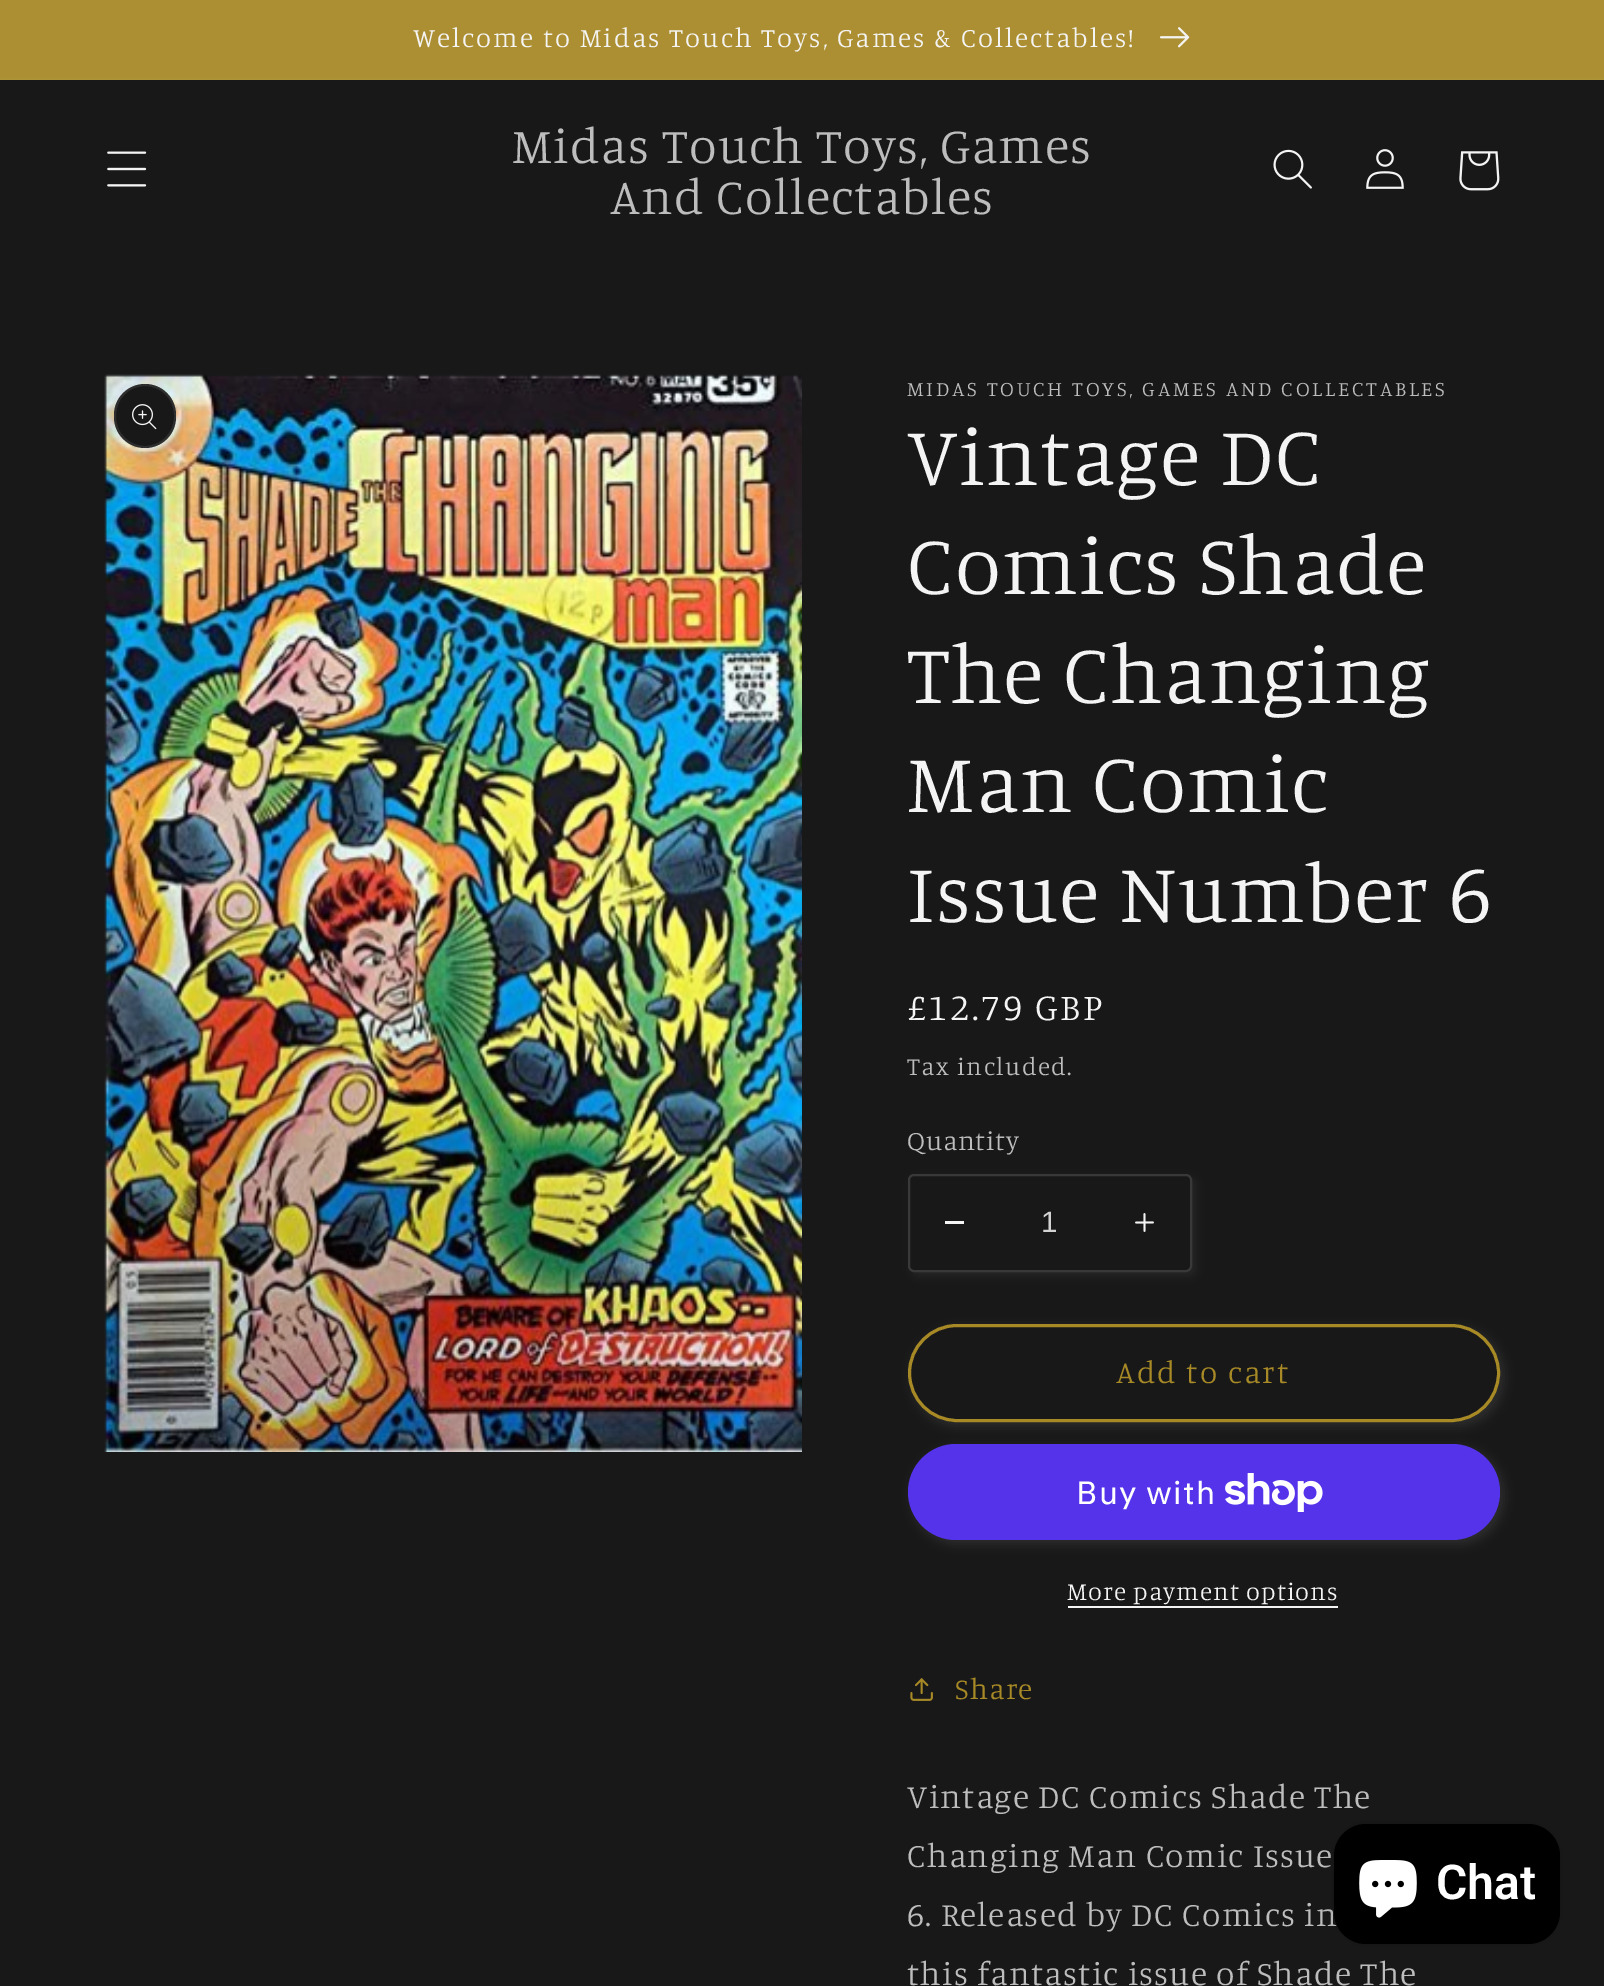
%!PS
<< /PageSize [1604 1986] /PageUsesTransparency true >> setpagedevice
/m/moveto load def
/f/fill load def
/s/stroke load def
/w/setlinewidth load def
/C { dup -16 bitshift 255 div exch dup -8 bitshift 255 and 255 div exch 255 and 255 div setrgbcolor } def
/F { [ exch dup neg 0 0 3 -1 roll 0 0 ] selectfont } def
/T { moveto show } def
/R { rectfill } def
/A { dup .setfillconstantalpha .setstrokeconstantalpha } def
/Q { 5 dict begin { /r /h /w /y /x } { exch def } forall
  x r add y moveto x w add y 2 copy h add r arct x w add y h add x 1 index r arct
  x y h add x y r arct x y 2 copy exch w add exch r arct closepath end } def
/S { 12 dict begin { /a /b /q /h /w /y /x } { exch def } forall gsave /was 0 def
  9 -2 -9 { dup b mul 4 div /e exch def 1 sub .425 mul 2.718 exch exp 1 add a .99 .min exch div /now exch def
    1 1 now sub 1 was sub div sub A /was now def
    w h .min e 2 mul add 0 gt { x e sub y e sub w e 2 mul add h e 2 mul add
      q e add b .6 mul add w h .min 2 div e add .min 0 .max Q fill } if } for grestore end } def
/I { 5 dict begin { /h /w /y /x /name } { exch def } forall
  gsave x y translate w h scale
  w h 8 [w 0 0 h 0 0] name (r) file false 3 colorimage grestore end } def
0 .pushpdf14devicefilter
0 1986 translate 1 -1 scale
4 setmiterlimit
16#181819 C
0 0 1604 1986 R
16#AD9236 C
0 78 1604 2 R
16#AC8F32 C
0 0 1604 78 R
/Manuale-Light 27.3 F
16#F4F4F4 C
413 47 m 2.1 0 (Welcome to Midas Touch Toys, Games & Collectables!) ashow
(1.rgb) 1160 27 30 21 I
(2.rgb) 107 151 40 36 I
/Manuale-Light 50.4 F
16#BDBDBD C
512 163 m 1.25 0 (Midas Touch Toys, Games) ashow
610 214 m 1.25 0 (And Collectables) ashow
(3.rgb) 1273 149 39 40 I
(4.rgb) 1366 149 38 40 I
(5.rgb) 1459 151 41 40 I
(6.rgb) 104 374 698 1078 I
16#181819 C
114 384 62 64 31 Q f
0.1 A
16#F4F4F4 C
2 w
115 385 60 62 30 Q s
1 A
(7.rgb) 132 404 25 26 I
/Manuale-Light 21 F
16#BDBDBD C
907 396 m 2.75 0 (MIDAS TOUCH TOYS, GAMES AND COLLECTABLES) ashow
/Manuale-Light 84 F
16#F4F4F4 C
907 485 m 1.25 0 (Vintage DC) ashow
907 594 m 1.25 0 (Comics Shade) ashow
907 703 m 1.25 0 (The Changing) ashow
907 812 m 1.25 0 (Man Comic) ashow
907 922 m 1.25 0 (Issue Number 6) ashow
/Manuale-Light 37.75 F
907 1020 m 2.75 0 (£12.79 GBP) ashow
/Manuale-Light 25.25 F
16#BDBDBD C
907 1075 m 1.5 0 (Tax included.) ashow
/Manuale-Light 27.3 F
907 1150 m .75 0 (Quantity) ashow
16#F4F4F4 C
912 1178 284 98 6 5 .05 S
16#181819 C
908 1174 284 98 6 Q f
16#F4F4F4 C
945 1221 19 3 R
(8.rgb) 1135 1213 19 19 I
16#39393A C
909 1175 282 96 5 Q s
/LiberationSans-Regular 29.5 F
16#D3D3D3 C
(1) 1041 1232 T
16#F4F4F4 C
912 1328 592 98 49 5 .1 S
16#181819 C
908 1324 592 98 49 Q f
909 1325 590 96 48 Q s
16#A78926 C
3 w
909.5 1325.5 589 95 47.5 Q s
/Manuale-Light 31.5 F
1116 1383 m 2.1 0 (Add to cart) ashow
16#F4F4F4 C
912 1448 592 96 48 5 .1 S
16#5433EB C
908 1444 592 96 48 Q f
/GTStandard-Regular 32 F
16#FFFFFF C
1076 1504 m 1.25 0 (Buy with) ashow
(9.rgb) 1225 1473 98 39 I
/Manuale-Light 25.25 F
16#F4F4F4 C
1067 1600 m 1.05 0 (More payment options) ashow
1068 1606 270 2 R
(10.rgb) 910 1678 23 23 I
/Manuale-Light 29.5 F
16#A78926 C
955 1699 m 1.25 0 (Share) ashow
/Manuale-Light 33.6 F
16#BDBDBD C
907 1808 m 1.25 0 (Vintage DC Comics Shade The) ashow
907 1867 m 1.25 0 (Changing Man Comic Issue) ashow
907 1926 m 1.25 0 (6. Released by DC Comics in) ashow
907 1985 m 1.25 0 (this fantastic issue of Shade The) ashow
16#000000 C
1334 1824 226 120 32 5 .15 S
1334 1824 226 120 32 Q f
(11.rgb) 1359 1860 58 58 I
/Roboto-SemiBold 48 F
16#FFFFFF C
(Chat) 1436 1899 T
.poppdf14devicefilter showpage
